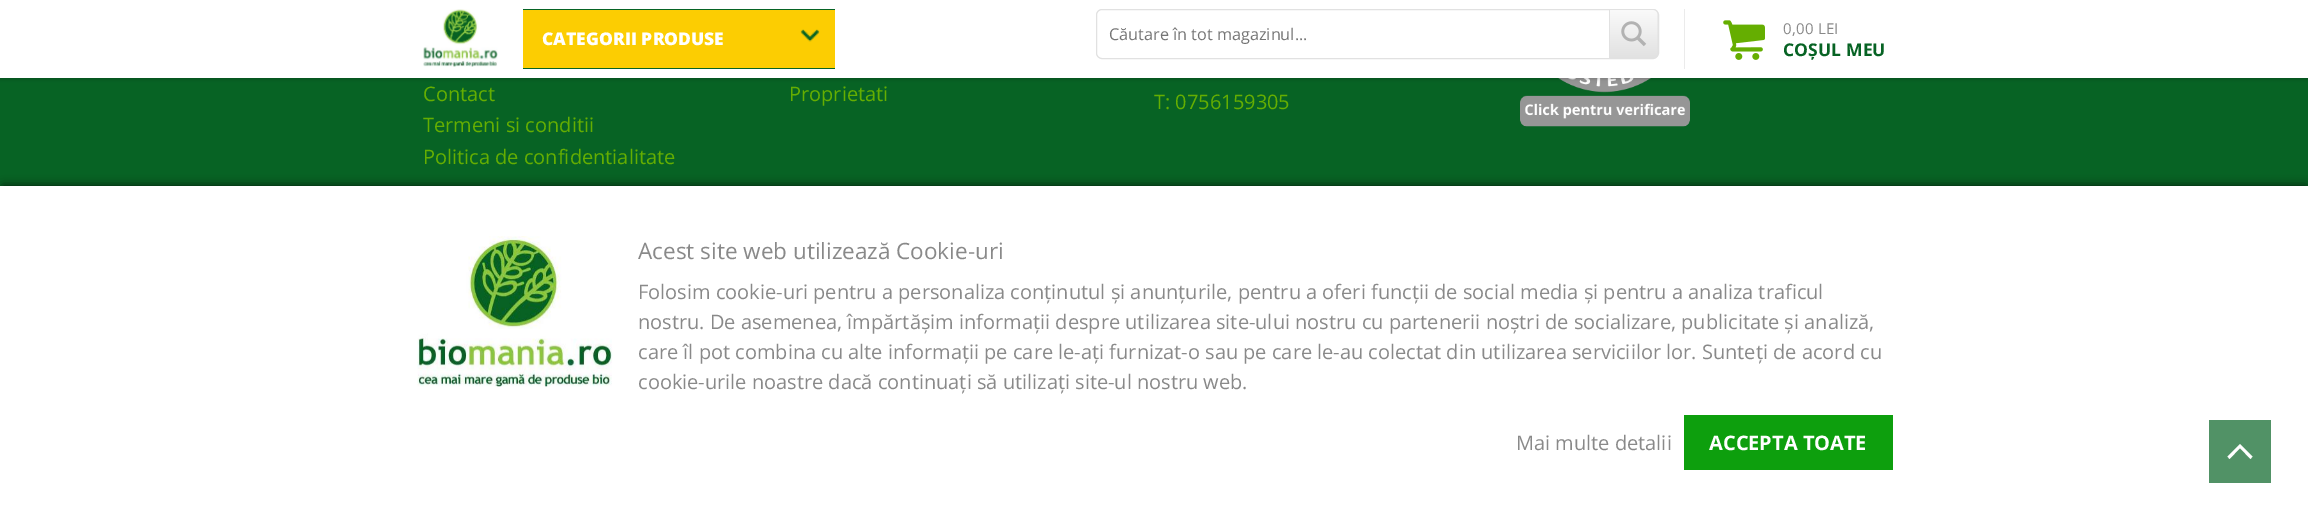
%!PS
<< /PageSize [2308 519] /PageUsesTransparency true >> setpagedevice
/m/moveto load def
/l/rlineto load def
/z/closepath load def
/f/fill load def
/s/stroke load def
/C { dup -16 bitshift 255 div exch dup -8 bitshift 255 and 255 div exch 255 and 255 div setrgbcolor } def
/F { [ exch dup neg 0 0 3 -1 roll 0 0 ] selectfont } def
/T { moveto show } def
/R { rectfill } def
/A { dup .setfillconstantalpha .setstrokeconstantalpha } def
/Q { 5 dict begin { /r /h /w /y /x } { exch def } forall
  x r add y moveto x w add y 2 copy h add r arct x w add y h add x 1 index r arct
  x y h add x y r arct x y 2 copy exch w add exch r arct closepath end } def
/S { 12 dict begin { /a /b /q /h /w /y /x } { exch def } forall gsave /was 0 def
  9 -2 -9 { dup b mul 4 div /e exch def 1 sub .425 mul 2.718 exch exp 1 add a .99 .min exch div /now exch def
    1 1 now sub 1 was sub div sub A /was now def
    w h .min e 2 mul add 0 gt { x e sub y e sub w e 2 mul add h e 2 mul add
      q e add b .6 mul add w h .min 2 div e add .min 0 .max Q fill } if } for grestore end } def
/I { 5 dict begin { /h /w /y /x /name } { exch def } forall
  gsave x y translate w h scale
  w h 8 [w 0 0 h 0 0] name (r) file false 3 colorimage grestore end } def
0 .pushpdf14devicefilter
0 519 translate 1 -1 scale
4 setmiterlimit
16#076324 C
0 0 2308 519 R
(5.rgb) 1520 78 170 49 I
16#000000 C
0 1 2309 78 0 2 .2 S
16#FFFFFF C
0 0 2308 78 R
(1.rgb) 423 9 75 58 I
16#076324 C
523 9 312 60 R
16#FCCD02 C
523 10 312 58 R
/OpenSans-ExtraBold 17.5 F
16#FFFFFF C
(CATEGORII PRODUSE) 542 45 T
(2.rgb) 800 29 20 13 I
16#EBEBEB C
1684 9 1 60 R
16#E1E1E1 C
1096.5 9.5 562 49 5.5 Q s
/OpenSans-Regular 16.25 F
16#757575 C
(Căutare în tot magazinul...) 1109 40 T
(3.rgb) 1609 9 50 49 I
(4.rgb) 1723 20 42 40 I
/OpenSans-Regular 15 F
16#898989 C
1783 34 m .25 0 (0,00 LEI) ashow
/OpenSans-Bold 17.5 F
16#076324 C
1783 56 m .1 0 (COȘUL MEU) ashow
/OpenSans-Regular 20 F
16#65AE01 C
(Contact) 423 101 T
(Termeni si conditii) 423 132 T
(Politica de confidentialitate) 423 164 T
(Proprietati) 789 101 T
(T: 0756159305) 1154 109 T
16#000000 C
3 186 2303 329 0 5 .75 S
16#FFFFFF C
0 186 2308 333 R
(6.rgb) 417 236 196 151 I
/OpenSans-Regular 22.5 F
16#898989 C
(Acest site web utilizează Cookie-uri) 638 259 T
/OpenSans-Regular 20 F
(Folosim cookie-uri pentru a personaliza conținutul și anunțurile, pentru a oferi funcții de social media și pentru a analiza traficul) 638 299 T
(nostru. De asemenea, împărtășim informații despre utilizarea site-ului nostru cu partenerii noștri de socializare, publicitate și analiză,) 638 329 T
(care îl pot combina cu alte informații pe care le-ați furnizat-o sau pe care le-au colectat din utilizarea serviciilor lor. Sunteți de acord cu) 638 359 T
(cookie-urile noastre dacă continuați să utilizați site-ul nostru web.) 638 389 T
(Mai multe detalii) 1516 450 T
16#0D9F0D C
1684 415 209 55 R
/OpenSans-Bold 20 F
16#FFFFFF C
(ACCEPTA TOATE) 1709 450 T
16#519266 C
2209 420 62 63 R
16#FFFFFF C
2227.5 456.5 m 2 2.5 l 10.5 -11 l 10.5 11 l 2 -2.5 l -12.5 -12.5 l z f
.poppdf14devicefilter showpage
